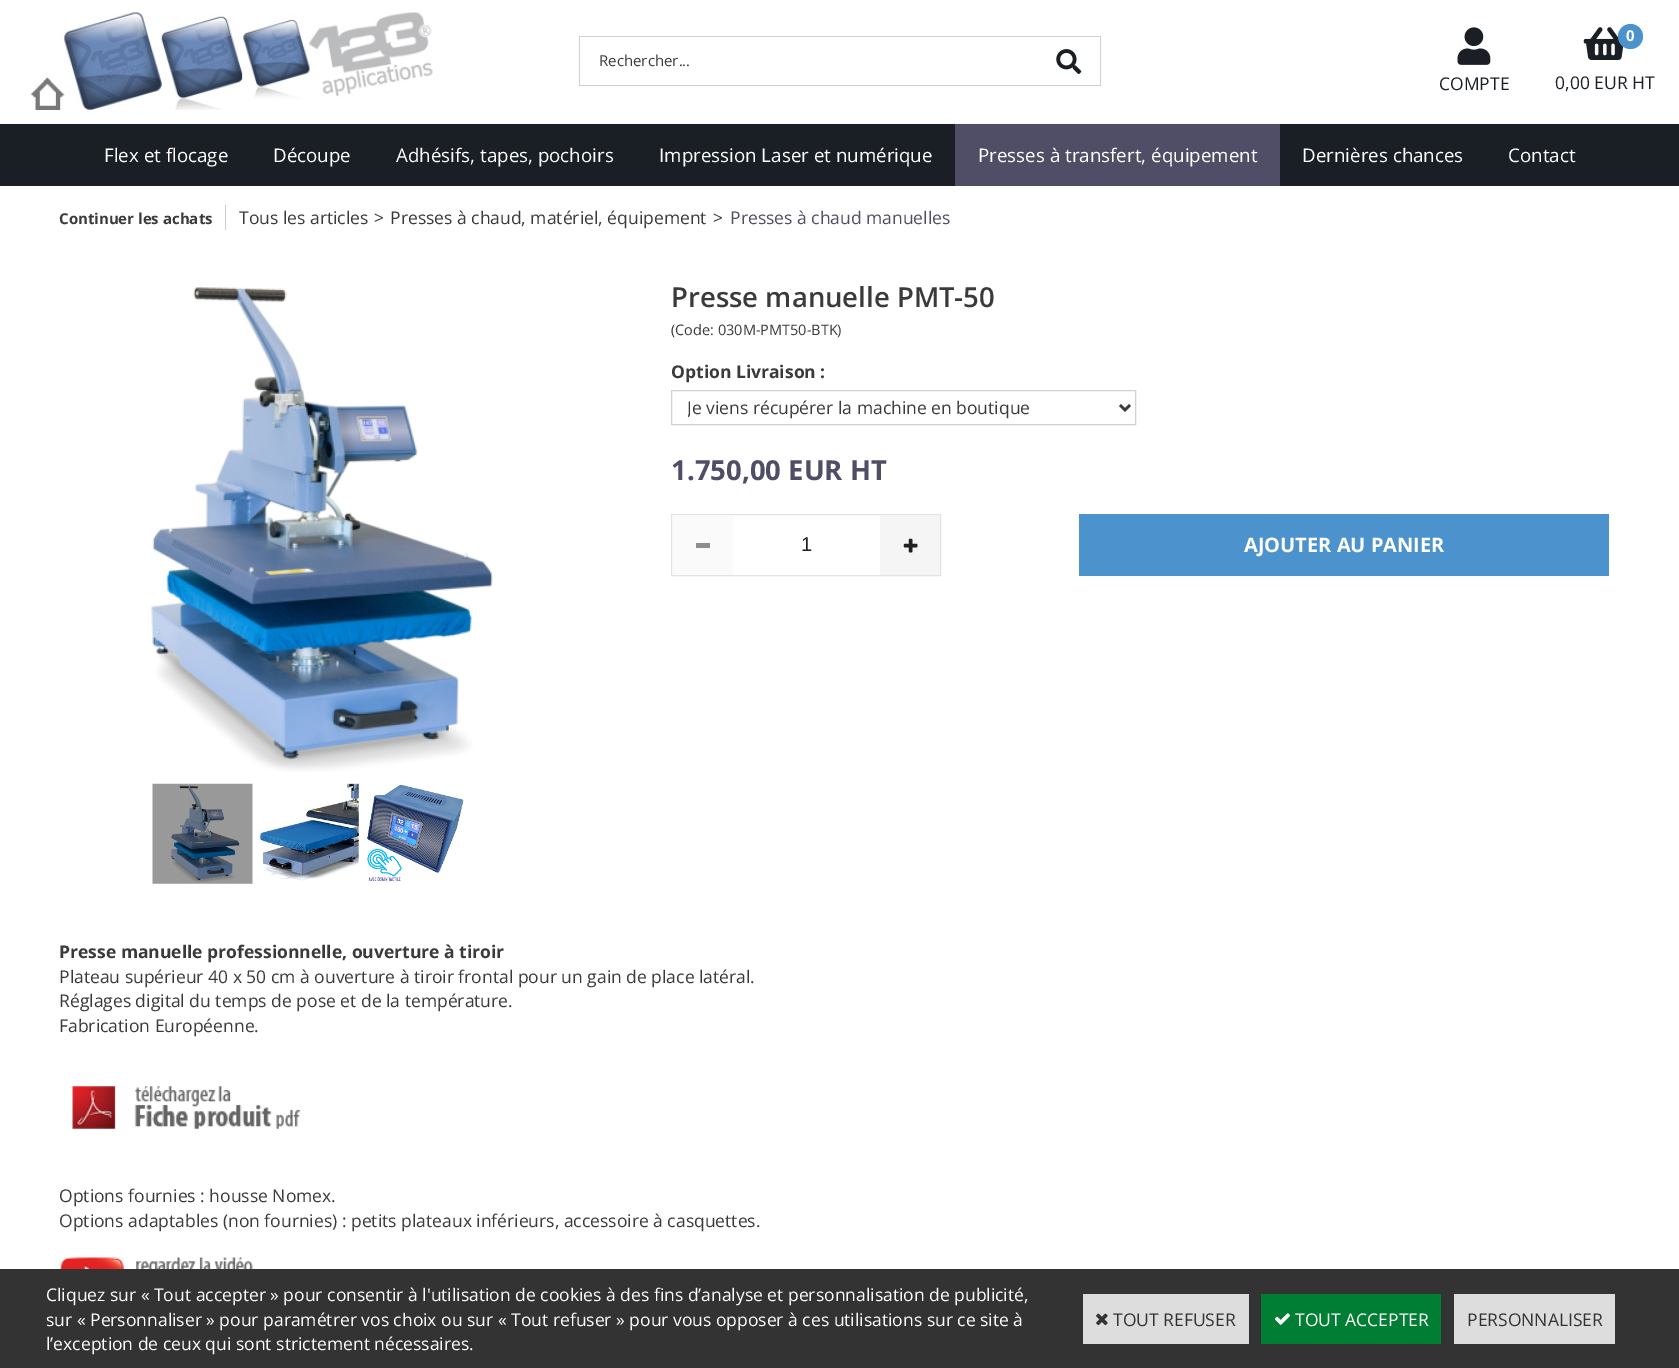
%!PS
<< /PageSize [1679 1368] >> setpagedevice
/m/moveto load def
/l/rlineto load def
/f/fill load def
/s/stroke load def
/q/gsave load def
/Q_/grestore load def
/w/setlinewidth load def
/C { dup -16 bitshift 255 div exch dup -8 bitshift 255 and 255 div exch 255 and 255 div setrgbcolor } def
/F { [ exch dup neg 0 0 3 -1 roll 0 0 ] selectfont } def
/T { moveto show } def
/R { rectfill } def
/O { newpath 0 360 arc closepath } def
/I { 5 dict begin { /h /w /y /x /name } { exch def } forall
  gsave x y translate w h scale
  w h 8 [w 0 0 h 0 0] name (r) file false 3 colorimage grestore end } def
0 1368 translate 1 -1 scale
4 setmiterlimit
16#FFFFFF C
0 0 1679 1368 R
(1.rgb) 31 12 402 98 I
16#D0D0D0 C
579 36 522 1 R
579 85 459 1 R
579 36 1 50 R
/OpenSans-Regular 15 F
16#3A3A3A C
(Rechercher...) 599 66 T
16#D0D0D0 C
1100 36 1 50 R
1038 85 63 1 R
(2.rgb) 1056 49 26 25 I
(3.rgb) 1457 27 34 38 I
/OpenSans-Regular 17.5 F
16#1A1F26 C
(COMPTE) 1439 90 T
(4.rgb) 1583 27 41 33 I
16#4C92CC C
1630.5 36.5 12.5 O f
/OpenSans-Bold 15 F
16#FFFFFF C
(0) 1626 41 T
/OpenSans-Regular 17.5 F
16#1A1F26 C
(0,00 EUR HT) 1555 89 T
0 124 1679 62 R
16#F8F8F8 C
0 123 1679 1 R
/OpenSans-Regular 18.75 F
16#FFFFFF C
(Flex et flocage) 104 162 T
(Découpe) 273 162 T
(Adhésifs, tapes, pochoirs) 396 162 T
(Impression Laser et numérique) 659 162 T
16#504E66 C
955 124 325 62 R
16#FFFFFF C
(Presses à transfert, équipement) 978 162 T
(Dernières chances) 1302 162 T
(Contact) 1508 162 T
/OpenSans-Bold 15 F
16#3A3A3A C
(Continuer les achats) 59 224 T
16#CCCCCC C
225 205 1 25 R
/OpenSans-Regular 17.5 F
16#3A3A3A C
(Tous les articles) 239 224 T
(>) 374 224 T
(Presses à chaud, matériel, équipement) 390 224 T
(>) 713 224 T
16#504E66 C
(Presses à chaud manuelles) 730 224 T
(5.rgb) 151 287 342 485 I
(6.rgb) 152 783 101 101 I
(7.rgb) 258 783 101 98 I
(8.rgb) 367 785 97 96 I
/OpenSans-SemiBold 27.5 F
16#3A3A3A C
(Presse manuelle PMT-50) 671 307 T
/OpenSans-Regular 14.5 F
(\(Code: 030M-PMT50-BTK\)) 671 335 T
/OpenSans-Bold 17.5 F
(Option Livraison :) 671 378 T
16#D0D0D0 C
671.5 390.5 464 34 rectstroke
16#3A3A3A C
2.5 w
1120 405 m 5 5 l 5 -5 l s
q
688 394 418 26 rectclip
/OpenSans-Regular 17.5 F
(Je viens récupérer la machine en boutique) 687 414 T
Q_
/OpenSans-Bold 27.5 F
16#504E66 C
(1.750,00 EUR HT) 671 480 T
16#E3E3E3 C
1 w
671.5 514.5 269 61 rectstroke
16#FAFAFA C
673 515 60 60 R
16#8E8E8E C
696 543 14 5 R
/LiberationSans-Regular 20 F
16#212121 C
(1) 801 551 T
16#F5F5F5 C
880 515 60 60 R
(9.rgb) 903 538 15 15 I
16#4C92CC C
1079 514 530 62 R
/OpenSans-Bold 20 F
16#FFFFFF C
(AJOUTER AU PANIER) 1244 552 T
/OpenSans-Bold 17.5 F
16#3A3A3A C
(Presse manuelle professionnelle, ouverture à tiroir) 59 958 T
/OpenSans-Regular 17.5 F
(Plateau supérieur 40 x 50 cm à ouverture à tiroir frontal pour un gain de place latéral.) 59 983 T
(Réglages digital du temps de pose et de la température.) 59 1007 T
(Fabrication Européenne.) 59 1032 T
(10.rgb) 72 1086 229 43 I
(Options fournies : housse Nomex.) 59 1202 T
(Options adaptables \(non fournies\) : petits plateaux inférieurs, accessoire à casquettes.) 59 1227 T
(11.rgb) 59 1257 194 12 I
16#333333 C
0 1269 1679 99 R
16#FFFFFF C
(Cliquez sur « Tout accepter » pour consentir à l'utilisation de cookies à des fins d’analyse et personnalisation de publicité,) 46 1301 T
(sur « Personnaliser » pour paramétrer vos choix ou sur « Tout refuser » pour vous opposer à ces utilisations sur ce site à) 46 1326 T
(l’exception de ceux qui sont strictement nécessaires.) 46 1350 T
16#DDDDDD C
1083 1294 166 50 R
(12.rgb) 1096 1313 12 13 I
16#333333 C
(TOUT REFUSER) 1113 1326 T
16#007E33 C
1261 1294 180 50 R
(13.rgb) 1275 1313 15 12 I
16#FFFFFF C
(TOUT ACCEPTER) 1295 1326 T
16#DDDDDD C
1454 1294 161 50 R
16#333333 C
(PERSONNALISER) 1467 1326 T
showpage
